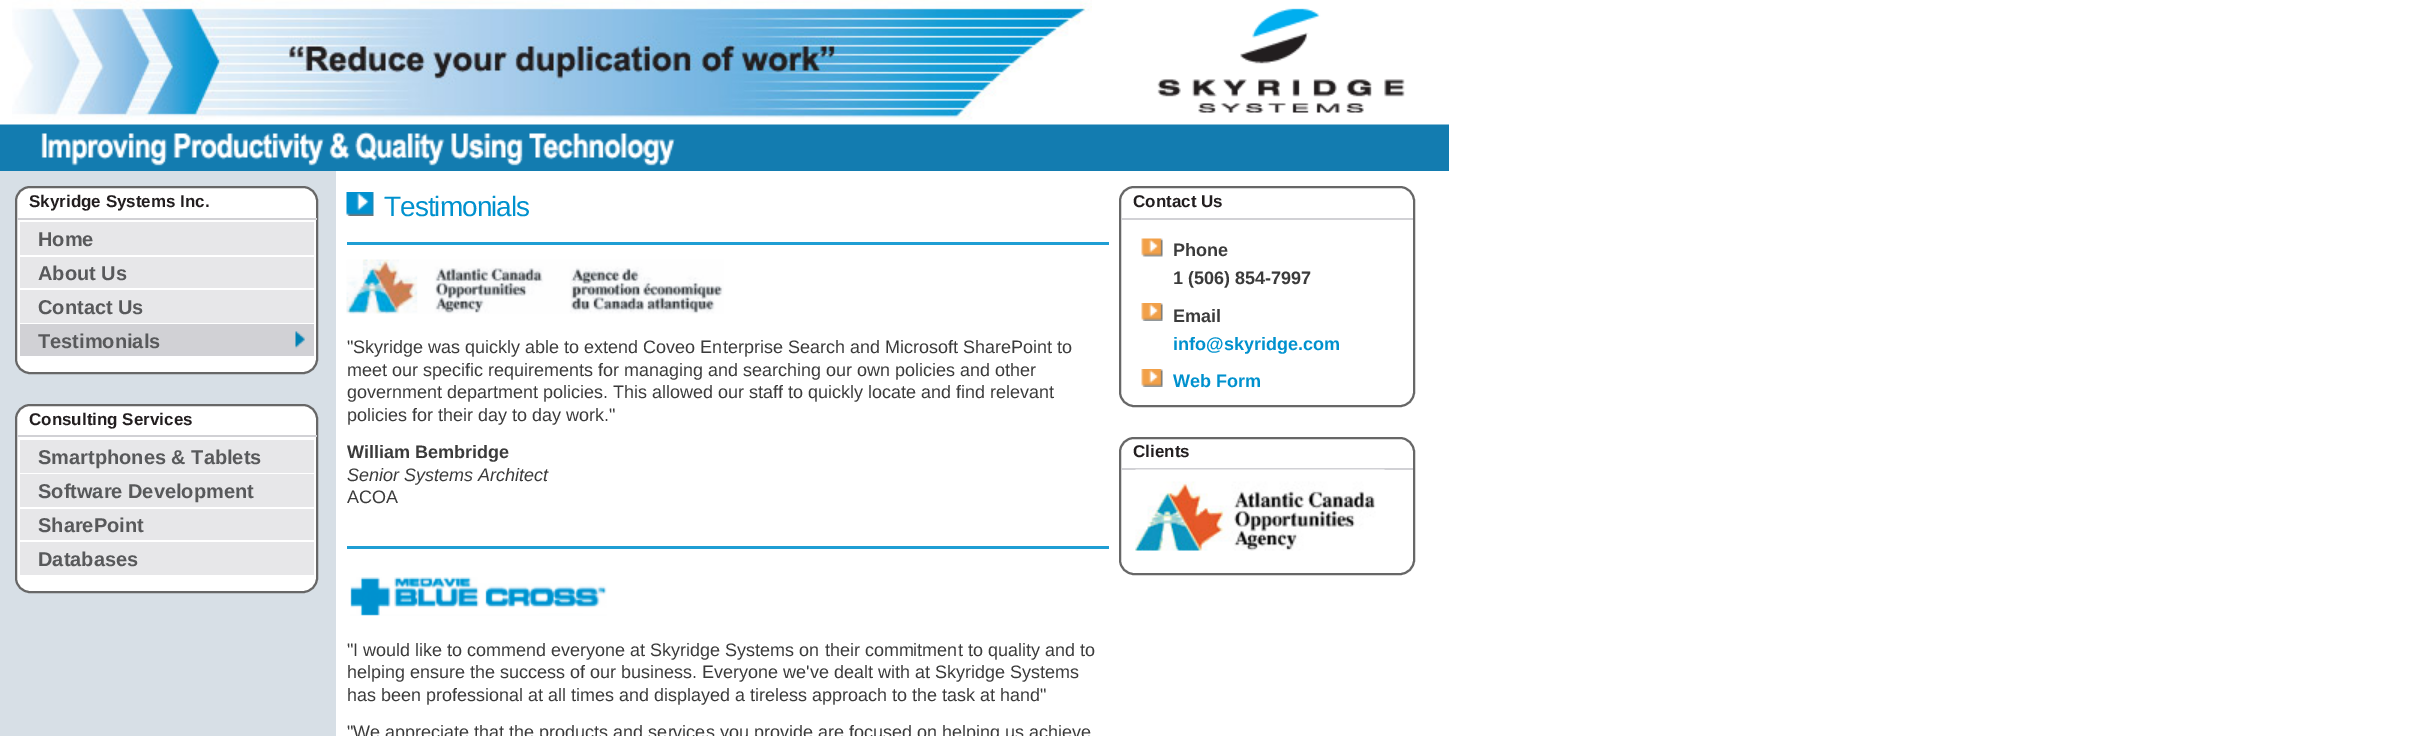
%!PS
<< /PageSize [2423 736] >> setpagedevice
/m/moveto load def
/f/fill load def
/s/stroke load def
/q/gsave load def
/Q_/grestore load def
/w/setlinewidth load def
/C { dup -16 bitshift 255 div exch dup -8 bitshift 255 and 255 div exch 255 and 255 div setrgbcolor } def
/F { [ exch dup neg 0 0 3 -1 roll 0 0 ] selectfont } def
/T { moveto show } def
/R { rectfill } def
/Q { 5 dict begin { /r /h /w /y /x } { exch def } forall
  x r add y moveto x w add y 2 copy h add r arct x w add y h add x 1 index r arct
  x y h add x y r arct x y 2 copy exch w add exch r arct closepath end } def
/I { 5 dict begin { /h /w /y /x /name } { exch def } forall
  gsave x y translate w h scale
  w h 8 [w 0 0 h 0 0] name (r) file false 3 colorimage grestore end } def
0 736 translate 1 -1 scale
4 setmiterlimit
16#FFFFFF C
0 0 2423 736 R
16#D7DFE6 C
0 171 336 565 R
(1.rgb) 12 0 1080 120 I
(2.rgb) 1157 8 248 105 I
(3.rgb) 0 124 1449 47 I
16#FFFFFF C
16 187 301 186 14 Q q f Q_
16#676767 C
2 w
s
16#D1D1D5 C
17 218 300 2 R
/LiberationSans-Bold 17 F
16#221E1F C
(Skyridge Systems Inc.) 29 207 T
16#E7E7E9 C
20 222 294 33 R
/LiberationSans-Bold 20 F
16#58595B C
(Home) 38 246 T
16#E7E7E9 C
20 257 294 31 R
16#58595B C
(About Us) 38 280 T
16#E7E7E9 C
20 290 294 33 R
16#58595B C
(Contact Us) 38 314 T
16#D1D1D5 C
20 324 294 32 R
(4.rgb) 295 331 10 18 I
16#58595B C
(Testimonials) 38 348 T
16#FFFFFF C
16 405 301 187 14 Q q f Q_
16#676767 C
s
16#D1D1D5 C
17 435 300 2 R
/LiberationSans-Bold 17 F
16#221E1F C
(Consulting Services) 29 425 T
16#E7E7E9 C
20 440 294 33 R
/LiberationSans-Bold 20 F
16#58595B C
(Smartphones & Tablets) 38 464 T
16#E7E7E9 C
20 474 294 33 R
16#58595B C
(Software Development) 38 498 T
16#E7E7E9 C
20 509 294 31 R
16#58595B C
(SharePoint) 38 532 T
16#E7E7E9 C
20 542 294 33 R
16#58595B C
(Databases) 38 566 T
(5.rgb) 346 192 28 24 I
/LiberationSans-Regular 28 F
16#0091CE C
384 216 m -1 0 (Testimonials) ashow
16#1F9ED4 C
347 242 762 3 R
(6.rgb) 346 259 378 55 I
/LiberationSans-Regular 18 F
16#3B3B3B C
("Skyridge was quickly able to extend Coveo Enterprise Search and Microsoft SharePoint to) 347 353 T
(meet our specific requirements for managing and searching our own policies and other) 347 376 T
(government department policies. This allowed our staff to quickly locate and find relevant) 347 398 T
(policies for their day to day work.") 347 421 T
/LiberationSans-Bold 18 F
(William Bembridge) 347 458 T
/LiberationSans-Italic 18 F
(Senior Systems Architect) 347 481 T
/LiberationSans-Regular 18 F
(ACOA) 347 503 T
16#1F9ED4 C
347 546 762 3 R
(7.rgb) 350 577 257 39 I
16#3B3B3B C
("I would like to commend everyone at Skyridge Systems on their commitment to quality and to) 347 656 T
(helping ensure the success of our business. Everyone we've dealt with at Skyridge Systems) 347 678 T
(has been professional at all times and displayed a tireless approach to the task at hand") 347 701 T
("We appreciate that the products and services you provide are focused on helping us achieve) 347 738 T
16#676767 C
1120 187 294 219 14 Q s
16#D1D1D5 C
1121 218 292 2 R
/LiberationSans-Bold 17 F
16#221E1F C
(Contact Us) 1133 207 T
(8.rgb) 1141 238 22 19 I
/LiberationSans-Bold 18 F
16#3B3B3B C
(Phone) 1173 256 T
(1 \(506\) 854-7997) 1173 284 T
(9.rgb) 1141 303 22 18 I
(Email) 1173 322 T
16#0091CE C
(info@skyridge.com) 1173 350 T
(9.rgb) 1141 369 22 18 I
(Web Form) 1173 387 T
16#676767 C
1120 438 294 136 14 Q s
16#D1D1D5 C
1121 468 292 2 R
/LiberationSans-Bold 17 F
16#221E1F C
(Clients) 1133 457 T
(10.rgb) 1135 469 250 82 I
showpage
